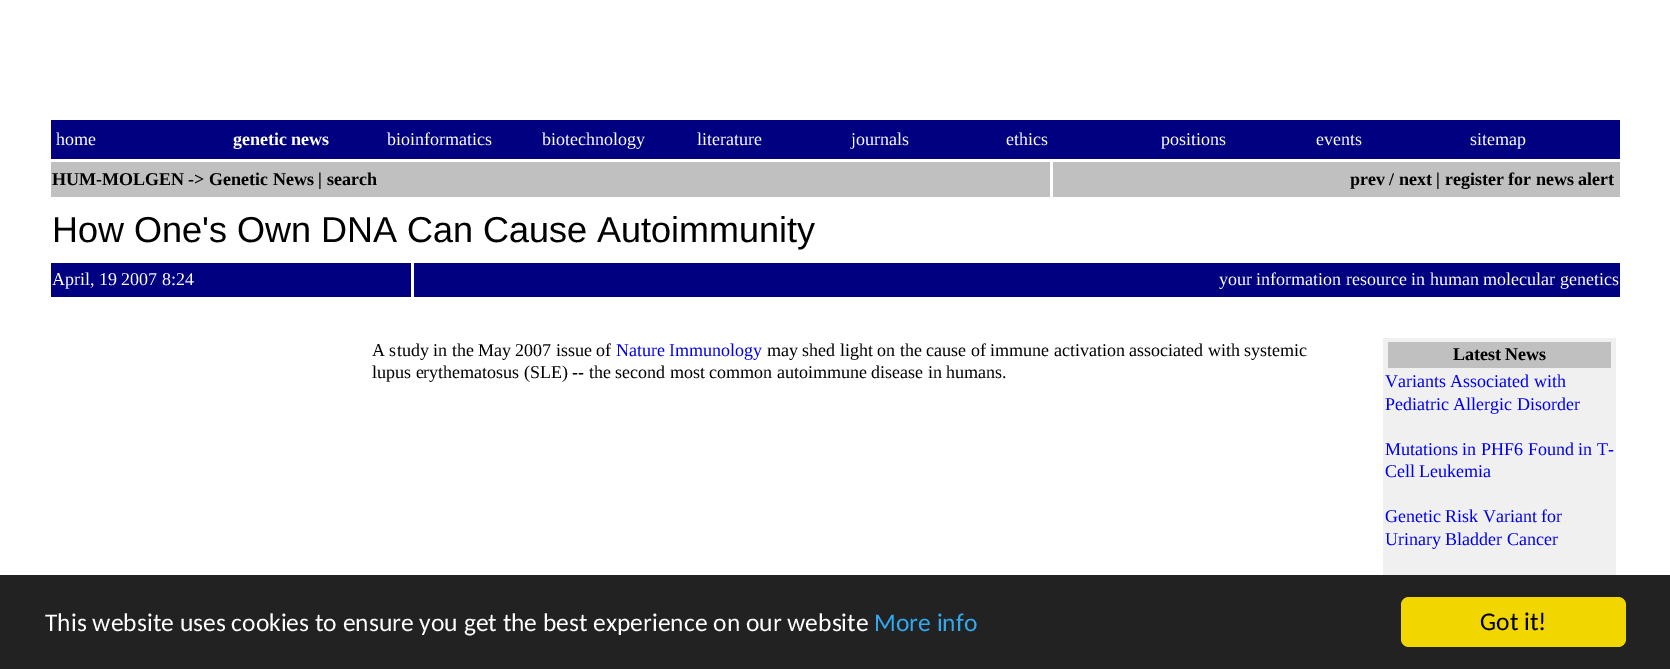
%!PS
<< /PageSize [1670 669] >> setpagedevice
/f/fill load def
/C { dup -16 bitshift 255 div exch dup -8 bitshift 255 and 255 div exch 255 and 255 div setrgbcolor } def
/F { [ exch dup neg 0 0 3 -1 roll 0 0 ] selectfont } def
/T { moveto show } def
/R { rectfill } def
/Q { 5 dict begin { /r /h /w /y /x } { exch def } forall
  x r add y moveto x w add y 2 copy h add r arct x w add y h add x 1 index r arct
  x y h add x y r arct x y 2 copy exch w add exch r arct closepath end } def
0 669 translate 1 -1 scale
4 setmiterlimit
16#FFFFFF C
0 0 1670 669 R
16#000080 C
51 120 1569 39 R
/LiberationSerif-Regular 18 F
16#FFFFFF C
(home) 56 145 T
/LiberationSerif-Bold 18 F
(genetic news) 233 145 T
/LiberationSerif-Regular 18 F
(bioinformatics) 387 145 T
(biotechnology) 542 145 T
(literature) 697 145 T
(journals) 851 145 T
(ethics) 1006 145 T
(positions) 1161 145 T
(events) 1316 145 T
(sitemap) 1470 145 T
16#C0C0C0 C
51 162 999 35 R
/LiberationSerif-Bold 18 F
16#000000 C
(HUM-MOLGEN -> Genetic News | search) 52 185 T
16#C0C0C0 C
1053 162 567 35 R
16#000000 C
(prev / next | register for news alert) 1350 185 T
/LiberationSans-Regular 36 F
(How One's Own DNA Can Cause Autoimmunity) 52 242 T
16#000080 C
51 263 360 34 R
/LiberationSerif-Regular 18 F
16#FFFFFF C
(April, 19 2007 8:24) 52 285 T
16#000080 C
414 263 1206 34 R
16#FFFFFF C
(your information resource in human molecular genetics) 1219 285 T
16#000000 C
(A study in the May 2007 issue of) 372 356 T
16#0000EE C
(Nature Immunology) 616 356 T
16#000000 C
(may shed light on the cause of immune activation associated with systemic) 767 356 T
(lupus erythematosus \(SLE\) -- the second most common autoimmune disease in humans.) 372 378 T
16#F0F0F0 C
1383 338 233 237 R
16#C0C0C0 C
1388 342 223 26 R
/LiberationSerif-Bold 18 F
16#000000 C
(Latest News) 1453 360 T
/LiberationSerif-Regular 18 F
16#0000EE C
(Variants Associated with) 1385 387 T
(Pediatric Allergic Disorder) 1385 410 T
(Mutations in PHF6 Found in T-) 1385 455 T
(Cell Leukemia) 1385 477 T
(Genetic Risk Variant for) 1385 522 T
(Urinary Bladder Cancer) 1385 545 T
16#222222 C
0 575 1670 94 R
/Carlito-Regular 25.5 F
16#FFFFFF C
(This website uses cookies to ensure you get the best experience on our website) 45 631 T
16#31A8F0 C
(More info) 874 631 T
16#F1D600 C
1401 597 225 50 8 Q f
16#000000 C
(Got it!) 1480 630 T
showpage
